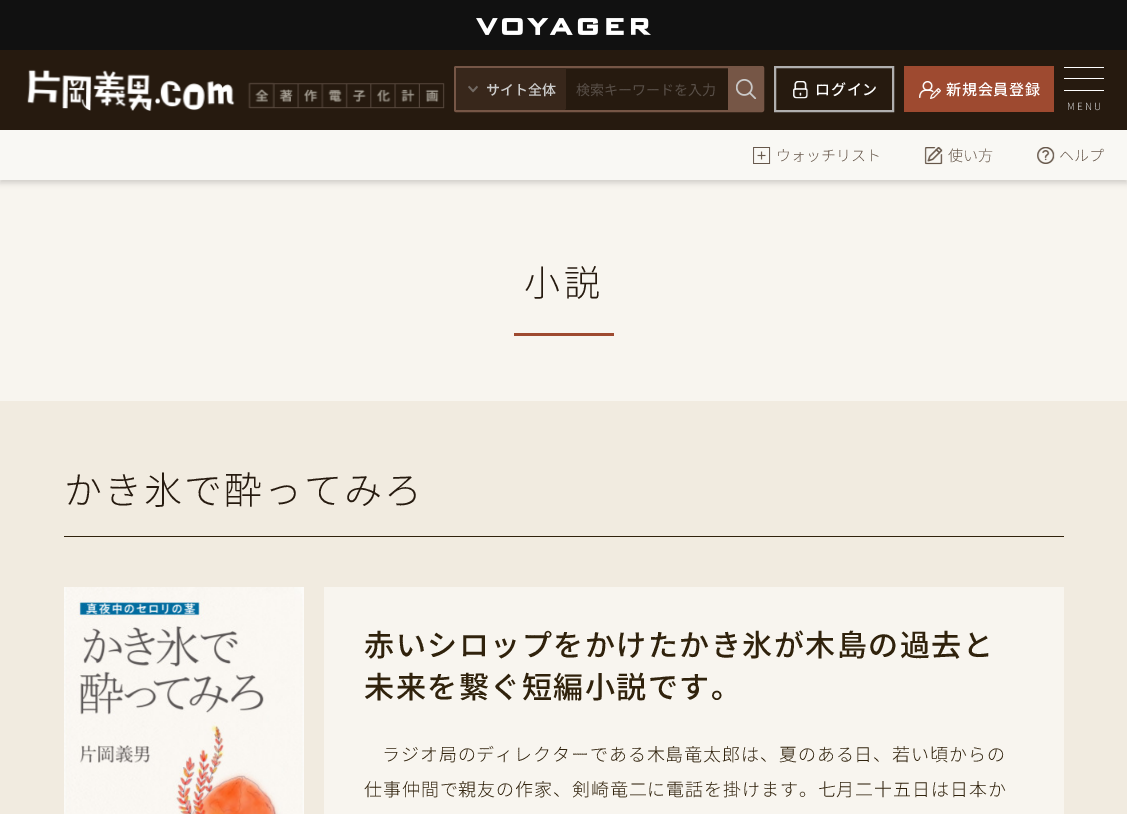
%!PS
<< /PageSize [1127 814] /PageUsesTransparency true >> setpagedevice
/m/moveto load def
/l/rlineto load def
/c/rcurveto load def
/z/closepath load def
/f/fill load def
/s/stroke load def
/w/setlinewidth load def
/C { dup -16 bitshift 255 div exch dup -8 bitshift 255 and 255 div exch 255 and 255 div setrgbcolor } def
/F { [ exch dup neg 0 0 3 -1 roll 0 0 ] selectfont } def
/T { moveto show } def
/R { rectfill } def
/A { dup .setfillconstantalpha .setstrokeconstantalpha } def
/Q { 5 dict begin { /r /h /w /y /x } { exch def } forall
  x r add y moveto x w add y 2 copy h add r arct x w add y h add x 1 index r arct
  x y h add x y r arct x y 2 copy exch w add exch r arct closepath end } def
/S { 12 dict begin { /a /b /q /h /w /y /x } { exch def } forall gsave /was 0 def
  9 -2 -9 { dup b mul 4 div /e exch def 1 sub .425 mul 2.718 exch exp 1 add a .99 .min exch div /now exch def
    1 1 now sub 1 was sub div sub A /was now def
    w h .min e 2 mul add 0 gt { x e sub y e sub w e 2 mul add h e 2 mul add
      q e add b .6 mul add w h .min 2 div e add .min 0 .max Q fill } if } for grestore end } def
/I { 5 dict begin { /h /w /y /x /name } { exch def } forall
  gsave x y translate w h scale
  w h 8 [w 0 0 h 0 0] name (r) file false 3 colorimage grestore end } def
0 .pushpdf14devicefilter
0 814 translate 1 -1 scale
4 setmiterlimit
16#F1EBE0 C
0 0 1127 814 R
16#111111 C
0 0 1127 50 R
(1.rgb) 476 18 175 17 I
16#261A0F C
0 50 1127 80 R
(2.rgb) 27 69 418 42 I
16#765646 C
2 w
455 67 308 44 1 Q s
16#38271B C
456 68 m 108 0 l 1 0 2 1 2 2 c 0 38 l 0 1 -1 2 -2 2 c -108 0 l z f
(3.rgb) 468 85 10 8 I
/NotoSansJP-Medium 14 F
16#CCCCCC C
(サイト全体) 486 95 T
/NotoSansJP-Regular 14 F
16#584F48 C
(検索キーワードを入力) 576 95 T
16#765646 C
728 68 34 42 R
(4.rgb) 736 79 21 20 I
16#B0AFAF C
775 67 118 44 rectstroke
(5.rgb) 793 81 16 18 I
/NotoSansJP-Medium 15 F
16#FFFFFF C
815 95 m .75 0 (ログイン) ashow
16#9E4A30 C
904 66 150 46 R
(6.rgb) 919 81 22 18 I
16#FFFFFF C
946 95 m .75 0 (新規会員登録) ashow
1064 67 40 1 R
1064 78 40 1 R
1064 90 40 1 R
/NotoSansSC-Light 10 F
16#CCCCCC C
1067 110 m 2 0 (MENU) ashow
16#F8F5EF C
0 180 1127 221 R
16#000000 C
0 133 1127 50 0 3 .16 S
16#F9F8F4 C
0 130 1127 50 R
(7.rgb) 753 147 18 17 I
/NotoSansJP-Light 15 F
16#66574A C
(ウォッチリスト) 776 161 T
(8.rgb) 924 147 19 18 I
(使い方) 948 161 T
(9.rgb) 1037 147 18 17 I
(ヘルプ) 1059 161 T
/NotoSansJP-Light 36 F
16#261A0F C
524 296 m 4 0 (小説) ashow
16#9E4A30 C
514 333 100 3 R
16#30220C C
64 536 1000 1 R
/NotoSansJP-Light 38 F
16#261A0F C
64 504 m 2 0 (かき氷で酔ってみろ) ashow
(10.rgb) 64 587 240 227 I
16#F8F5EF C
324 587 740 227 R
/NotoSansJP-Medium 30 F
16#30220C C
364 656 m 1.5 0 (赤いシロップをかけたかき氷が木島の過去と) ashow
364 698 m 1.5 0 (未来を繋ぐ短編小説です。) ashow
/NotoSansJP-Light 18 F
382 761 m .9 0 (ラジオ局のディレクターである木島竜太郎は、夏のある日、若い頃からの) ashow
364 796 m .9 0 (仕事仲間で親友の作家、剣崎竜二に電話を掛けます。七月二十五日は日本か) ashow
.poppdf14devicefilter showpage
